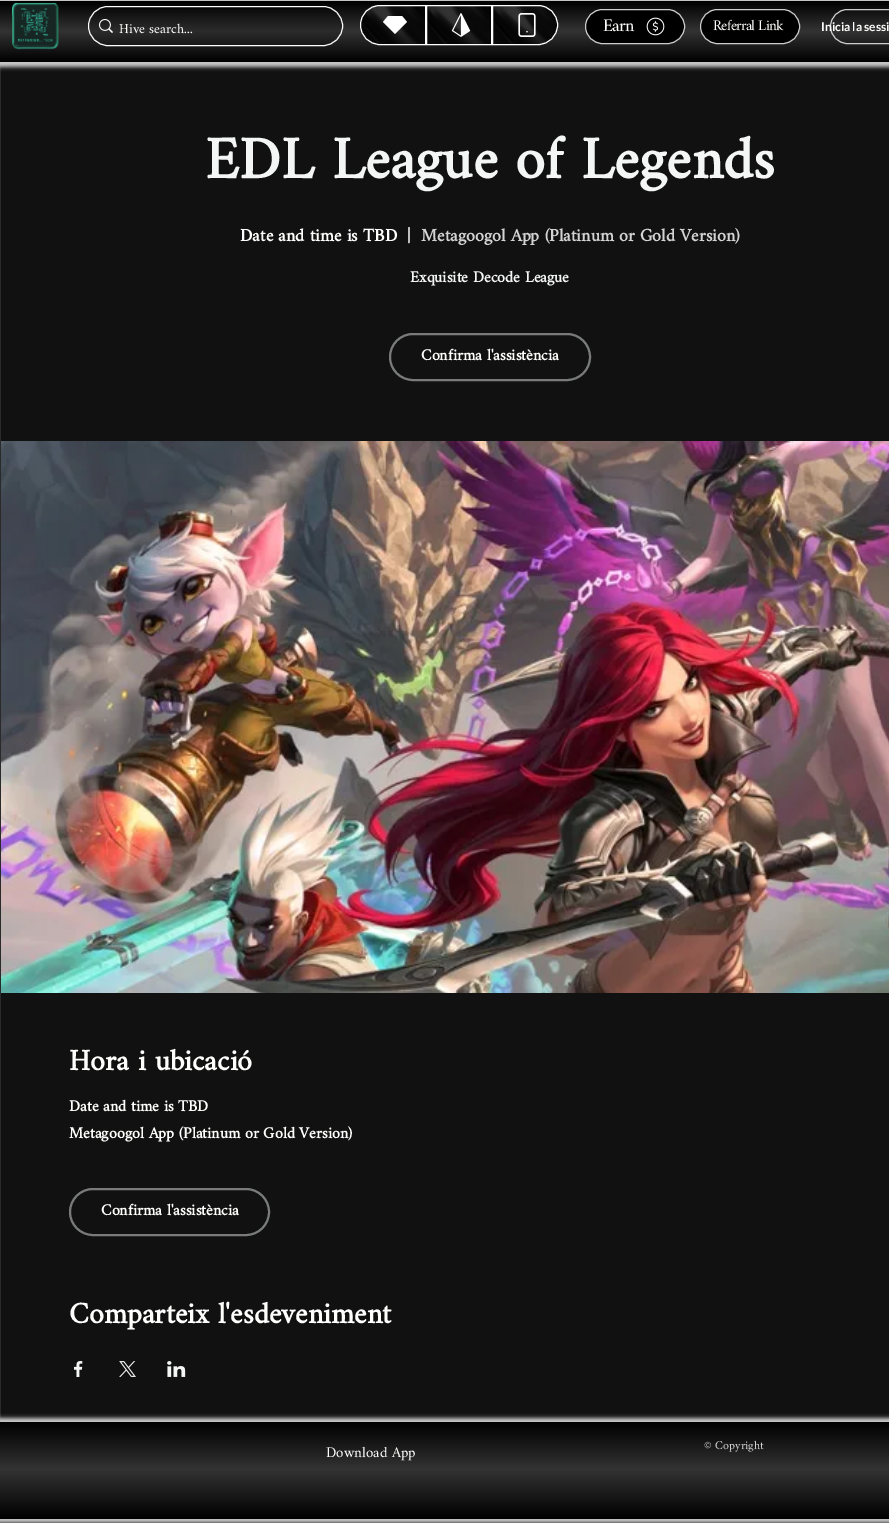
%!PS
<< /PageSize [889 1523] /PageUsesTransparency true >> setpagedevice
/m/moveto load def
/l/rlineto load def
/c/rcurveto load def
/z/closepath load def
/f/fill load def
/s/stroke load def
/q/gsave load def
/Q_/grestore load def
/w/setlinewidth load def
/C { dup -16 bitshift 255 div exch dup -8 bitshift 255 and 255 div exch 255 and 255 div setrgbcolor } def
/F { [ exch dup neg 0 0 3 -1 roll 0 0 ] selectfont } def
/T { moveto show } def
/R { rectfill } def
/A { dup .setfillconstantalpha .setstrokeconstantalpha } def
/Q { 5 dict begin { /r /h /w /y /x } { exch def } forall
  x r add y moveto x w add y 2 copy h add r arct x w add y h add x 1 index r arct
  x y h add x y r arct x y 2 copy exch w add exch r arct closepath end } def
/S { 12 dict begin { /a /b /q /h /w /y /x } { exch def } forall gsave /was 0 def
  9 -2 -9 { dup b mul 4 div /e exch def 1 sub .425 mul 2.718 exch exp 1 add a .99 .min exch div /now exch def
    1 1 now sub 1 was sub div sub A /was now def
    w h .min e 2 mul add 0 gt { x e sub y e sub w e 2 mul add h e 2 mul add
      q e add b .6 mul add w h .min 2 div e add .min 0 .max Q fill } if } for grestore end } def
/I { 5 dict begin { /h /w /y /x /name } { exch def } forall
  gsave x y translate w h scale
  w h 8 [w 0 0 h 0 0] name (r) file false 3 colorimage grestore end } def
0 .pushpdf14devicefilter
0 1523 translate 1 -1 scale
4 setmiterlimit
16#000000 C
0 0 889 1523 R
16#2A2A2A C
0 63 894 1359 5 Q f
16#111111 C
1 64 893 1357 5 Q f
16#CCCCCC C
-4 -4 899 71 0 2 1 S
q 0 1 m 889 0 l 0 61 l -889 0 l z clip newpath
<< /ShadingType 2 /ColorSpace /DeviceRGB /Coords [490 62 490 1] /Extend [true true] /Function << /FunctionType 3 /Domain [0 1] /Functions [<< /FunctionType 2 /Domain [0 1] /C0 [0 0 0] /C1 [.2 .2 .2] /N 1 >> << /FunctionType 2 /Domain [0 1] /C0 [.2 .2 .2] /C1 [0 0 0] /N 1 >>] /Bounds [.51] /Encode [0 1 0 1] >> >> shfill Q_
(1.rgb) 12 3 47 47 I
16#FFFFFF C
88.5 6.5 254 39 19.5 Q s
0.15 A
16#000000 C
89 7 253 38 19 Q f
1 A
(2.rgb) 99 19 14 14 I
/Amiri-Regular 14 F
16#FFFFFE C
(Hive search...) 119 33 T
(3.rgb) 360 5 65 40 I
380 5.5 m 45.5 0 l 0 39 l -45.5 0 l -11 0 -19.5 -8.5 -19.5 -19.5 c 0 -11 8.5 -19.5 19.5 -19.5 c z s
16#FFFFFF C
402 16 m -14 0 l -5 6 l 12 12 l 12 -12 l z f
(4.rgb) 427 6 64 38 I
16#FFFFFE C
426.5 5.5 65 39 rectstroke
(5.rgb) 451 13 20 24 I
(6.rgb) 493 5 65 40 I
16#FFFFFF C
492.5 5.5 m 45.5 0 l 11 0 19.5 8.5 19.5 19.5 c 0 11 -8.5 19.5 -19.5 19.5 c -45.5 0 l z s
(7.rgb) 518 13 18 24 I
16#000000 C
585.5 9.5 99 34 17 Q q f Q_
16#CCCCCC C
s
/Amiri-Regular 18 F
16#FFFFFE C
603 31 m -1 0 (Earn) ashow
(8.rgb) 646 17 19 19 I
16#000000 C
700.5 9.5 99 34 17 Q q f Q_
16#CCCCCC C
s
/Amiri-Regular 15 F
16#FFFFFE C
713 30 m -.75 0 (Referral Link) ashow
16#CCCCCC C
830.5 9.5 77 34 17 Q s
/Lato-Bold 12 F
16#FFFFFE C
(Inicia la sessi) 821 31 T
/Amiri-Bold 60 F
16#F3F6F4 C
(EDL League of Legends) 205 178 T
/Amiri-Bold 18 F
16#FFFFFE C
(Date and time is TBD) 240 241 T
(|) 407 241 T
16#D3D3D3 C
(Metagoogol App \(Platinum or Gold Version\)) 421 241 T
/Amiri-Bold 16 F
16#F3F6F4 C
(Exquisite Decode League) 410 282 T
16#797A7A C
2 w
390 334 200 46 23 Q s
16#FFFFFE C
(Confirma l'assistència) 421 360 T
(9.rgb) 1 441 888 552 I
/Amiri-Bold 30 F
(Hora i ubicació) 69 1070 T
/Amiri-Bold 16 F
(Date and time is TBD) 69 1111 T
(Metagoogol App \(Platinum or Gold Version\)) 69 1138 T
16#797A7A C
70 1189 199 46 23 Q s
16#FFFFFE C
(Confirma l'assistència) 101 1215 T
/Amiri-Bold 30 F
(Comparteix l'esdeveniment) 69 1323 T
(10.rgb) 74 1361 9 16 I
(11.rgb) 119 1361 17 16 I
(12.rgb) 167 1361 19 16 I
16#CCCCCC C
-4 1418 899 105 0 2 1 S
q 0 1422 m 889 0 l 0 97 l -889 0 l z clip newpath
<< /ShadingType 2 /ColorSpace /DeviceRGB /Coords [490 1519 490 1422] /Extend [true true] /Function << /FunctionType 3 /Domain [0 1] /Functions [<< /FunctionType 2 /Domain [0 1] /C0 [0 0 0] /C1 [.2 .2 .2] /N 1 >> << /FunctionType 2 /Domain [0 1] /C0 [.2 .2 .2] /C1 [0 0 0] /N 1 >>] /Bounds [.51] /Encode [0 1 0 1] >> >> shfill Q_
/Amiri-Regular 15 F
16#FFFFFE C
(Download App) 326 1457 T
/Amiri-Regular 12 F
16#D3D3D3 C
(© Copyright) 704 1449 T
.poppdf14devicefilter showpage
